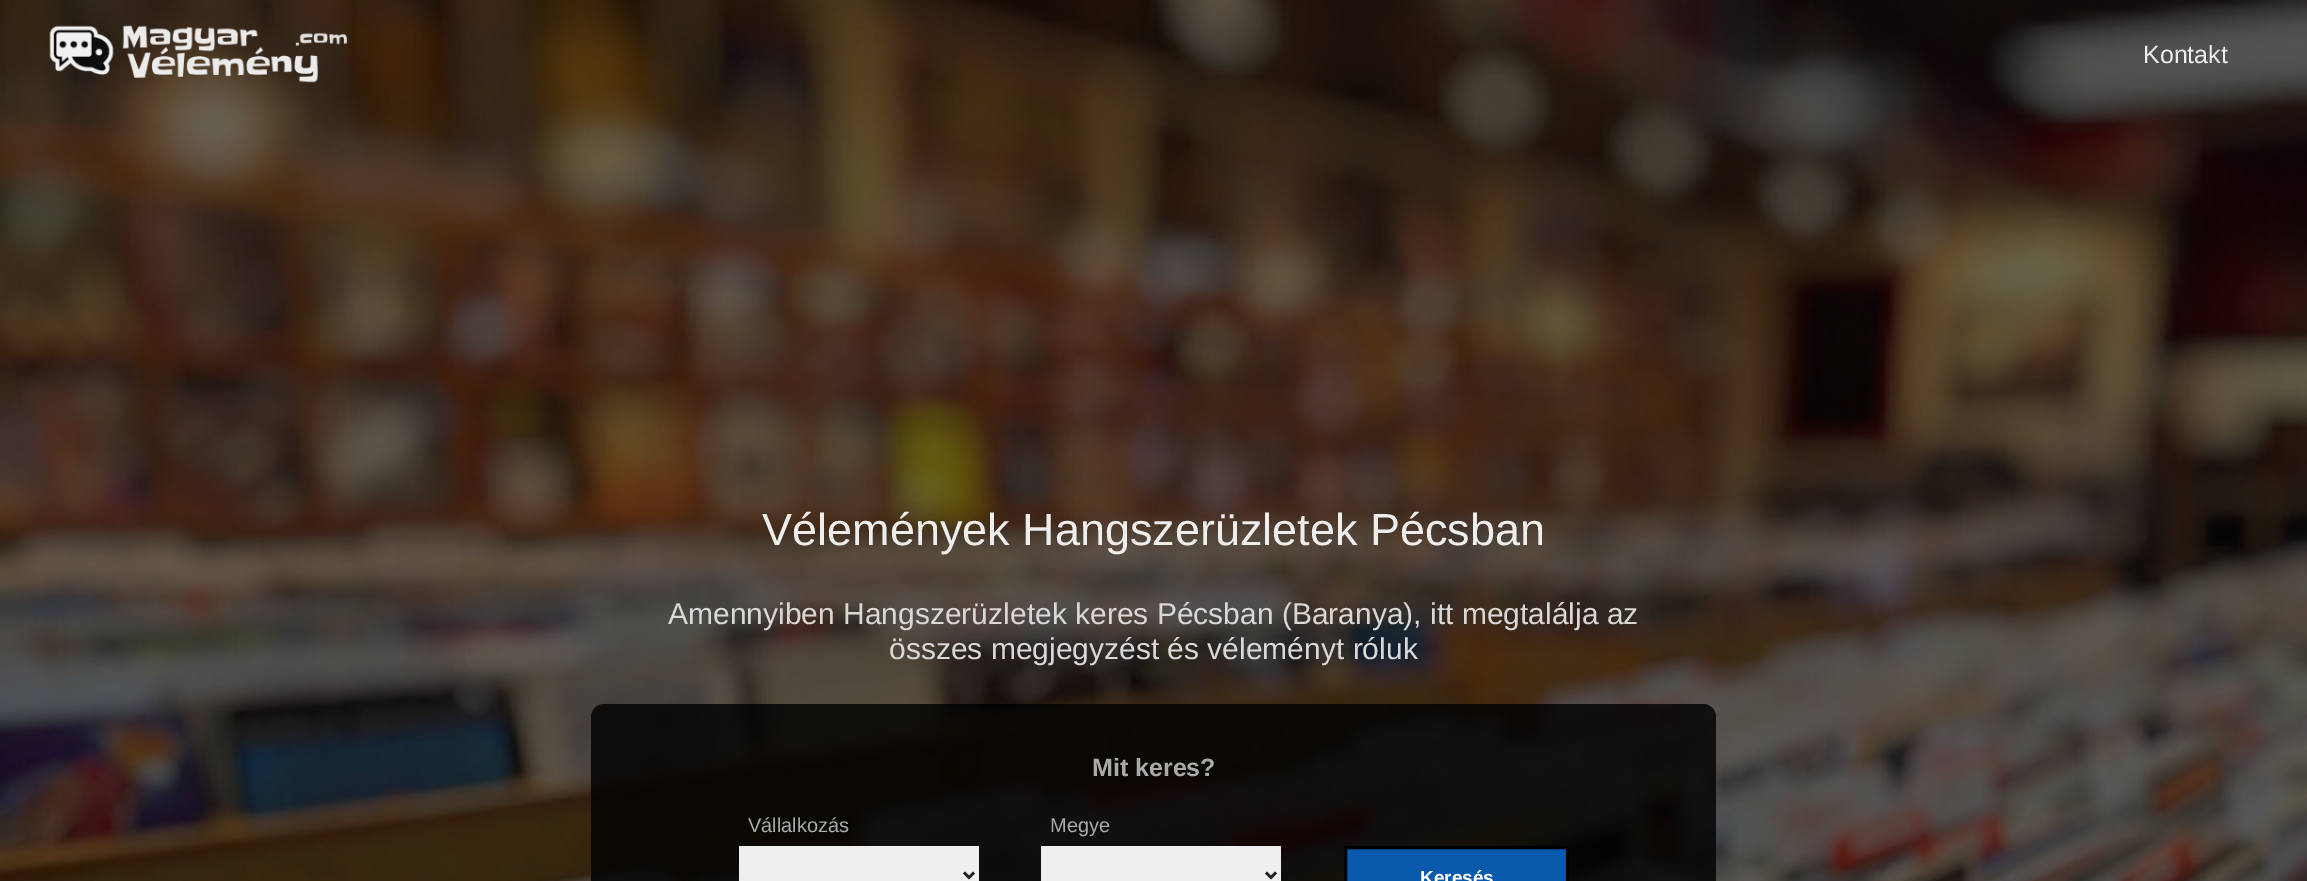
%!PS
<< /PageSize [2307 881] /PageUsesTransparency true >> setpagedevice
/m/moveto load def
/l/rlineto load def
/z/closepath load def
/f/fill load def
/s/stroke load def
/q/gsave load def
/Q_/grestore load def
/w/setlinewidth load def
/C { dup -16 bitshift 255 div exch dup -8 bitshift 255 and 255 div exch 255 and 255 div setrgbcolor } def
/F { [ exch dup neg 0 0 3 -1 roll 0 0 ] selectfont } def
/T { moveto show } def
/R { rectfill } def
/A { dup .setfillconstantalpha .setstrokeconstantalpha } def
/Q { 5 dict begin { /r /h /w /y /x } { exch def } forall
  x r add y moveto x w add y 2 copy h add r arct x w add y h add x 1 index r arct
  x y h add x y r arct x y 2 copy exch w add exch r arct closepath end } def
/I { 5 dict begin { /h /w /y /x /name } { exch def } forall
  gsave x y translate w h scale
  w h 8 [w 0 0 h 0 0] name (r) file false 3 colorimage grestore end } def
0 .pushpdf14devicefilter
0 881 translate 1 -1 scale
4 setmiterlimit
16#FFFFFF C
0 0 2307 881 R
(1.rgb) 0 0 2307 881 I
(2.rgb) 49 25 299 58 I
/LiberationSans-Regular 25 F
16#EEEEED C
(Kontakt) 2143 63 T
/LiberationSans-Regular 45 F
(Vélemények Hangszerüzletek Pécsban) 762 545 T
/LiberationSans-Regular 30 F
16#D9D8D7 C
(Amennyiben Hangszerüzletek keres Pécsban \(Baranya\), itt megtalálja az) 668 624 T
(összes megjegyzést és véleményt róluk) 889 659 T
0.8 A
16#000000 C
591 704 1125 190 13 Q f
/LiberationSans-Bold 25 F
1 A
16#AAAAAA C
(Mit keres?) 1092 776 T
/LiberationSans-Regular 20 F
(Vállalkozás) 748 832 T
16#EFEFEF C
739 846 240 35 R
16#222222 C
2.5 w
964 872.5 m 5 5 l 5 -5 l s
16#AAAAAA C
(Megye) 1050 832 T
16#EFEFEF C
1041 846 240 35 R
16#222222 C
1266 872.5 m 5 5 l 5 -5 l s
16#0959AC C
1345.5 847.5 m 222 0 l 0 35 l -222 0 l z q f Q_
16#000000 C
3 w
s
/LiberationSans-Bold 19 F
16#FFFFFF C
(Keresés) 1420 884 T
.poppdf14devicefilter showpage
